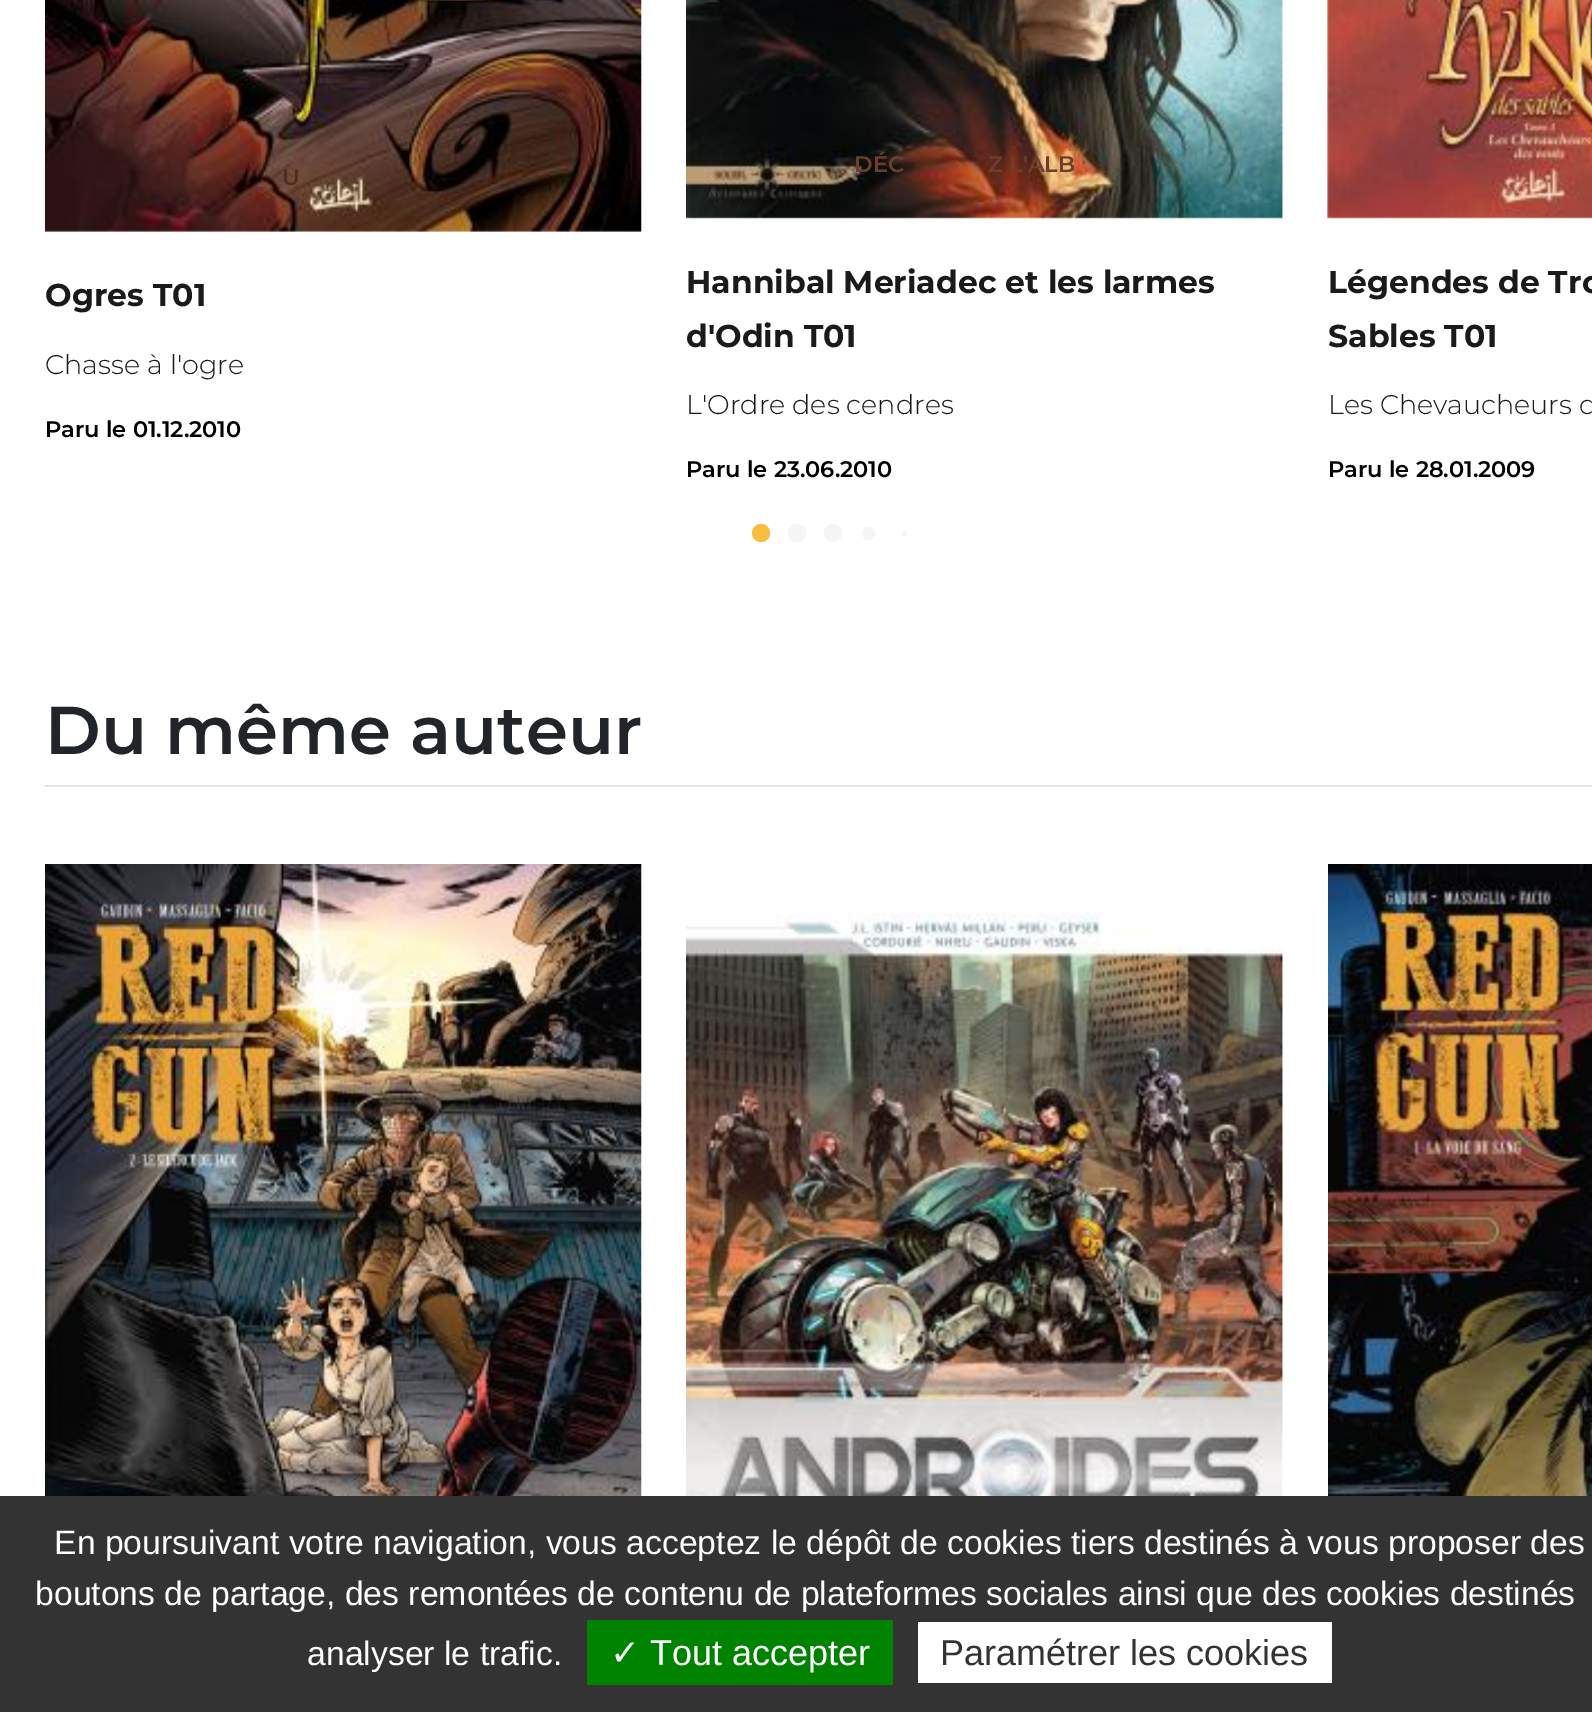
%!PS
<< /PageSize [1592 1712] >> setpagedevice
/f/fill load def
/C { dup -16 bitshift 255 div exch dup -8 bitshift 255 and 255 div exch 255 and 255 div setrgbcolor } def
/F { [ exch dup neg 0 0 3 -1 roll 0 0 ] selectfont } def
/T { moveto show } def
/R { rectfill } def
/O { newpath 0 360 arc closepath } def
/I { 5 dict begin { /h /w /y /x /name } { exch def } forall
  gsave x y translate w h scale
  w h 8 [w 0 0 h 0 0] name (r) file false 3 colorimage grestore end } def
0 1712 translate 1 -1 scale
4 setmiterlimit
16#FFFFFF C
0 0 1592 1712 R
(1.rgb) 45 0 597 232 I
/Montserrat-SemiBold 22.5 F
16#4D2E23 C
(U) 282 185 T
/Montserrat-Bold 31.5 F
16#1A1A1A C
(Ogres T01) 45 306 T
/Montserrat-Light 27 F
(Chasse à l'ogre) 45 374 T
/Montserrat-SemiBold 22.5 F
16#000000 C
(Paru le 01.12.2010) 45 437 T
(2.rgb) 686 0 598 219 I
16#6D3F2A C
(DÉC) 854 172 T
(Z L'ALB) 988 172 T
/Montserrat-Bold 31.5 F
16#1A1A1A C
(Hannibal Meriadec et les larmes) 686 293 T
(d'Odin T01) 686 347 T
/Montserrat-Light 27 F
(L'Ordre des cendres) 686 414 T
/Montserrat-SemiBold 22.5 F
16#000000 C
(Paru le 23.06.2010) 686 477 T
(3.rgb) 1327 0 265 219 I
/Montserrat-Bold 31.5 F
16#1A1A1A C
(Légendes de Tro) 1328 293 T
(Sables T01) 1328 347 T
/Montserrat-Light 27 F
(Les Chevaucheurs d) 1328 414 T
/Montserrat-SemiBold 22.5 F
16#000000 C
(Paru le 28.01.2009) 1328 477 T
16#F8BD3F C
761 533 9 O f
16#F7F5F4 C
797 533 9 O f
833 533 9 O f
868.5 533.5 6.5 O f
904.5 533.5 2.5 O f
/Montserrat-SemiBold 67.5 F
16#212529 C
(Du même auteur) 45 754 T
16#E3E4E5 C
45 785 1547 2 R
(4.rgb) 45 864 597 632 I
(5.rgb) 686 912 597 584 I
(6.rgb) 1328 864 264 632 I
16#333333 C
0 1496 1592 216 R
/LiberationSans-Regular 33.75 F
16#FFFFFF C
(En poursuivant votre navigation, vous acceptez le dépôt de cookies tiers destinés à vous proposer des) 54 1554 T
(boutons de partage, des remontées de contenu de plateformes sociales ainsi que des cookies destinés) 35 1605 T
(analyser le trafic.) 307 1665 T
16#008300 C
587 1620 306 65 R
/DejaVuSans-Regular 36 F
16#FFFFFF C
(✓) 610 1665 T
/LiberationSans-Regular 36 F
(Tout accepter) 650 1665 T
918 1622 414 61 R
16#333333 C
(Paramétrer les cookies) 940 1665 T
showpage
